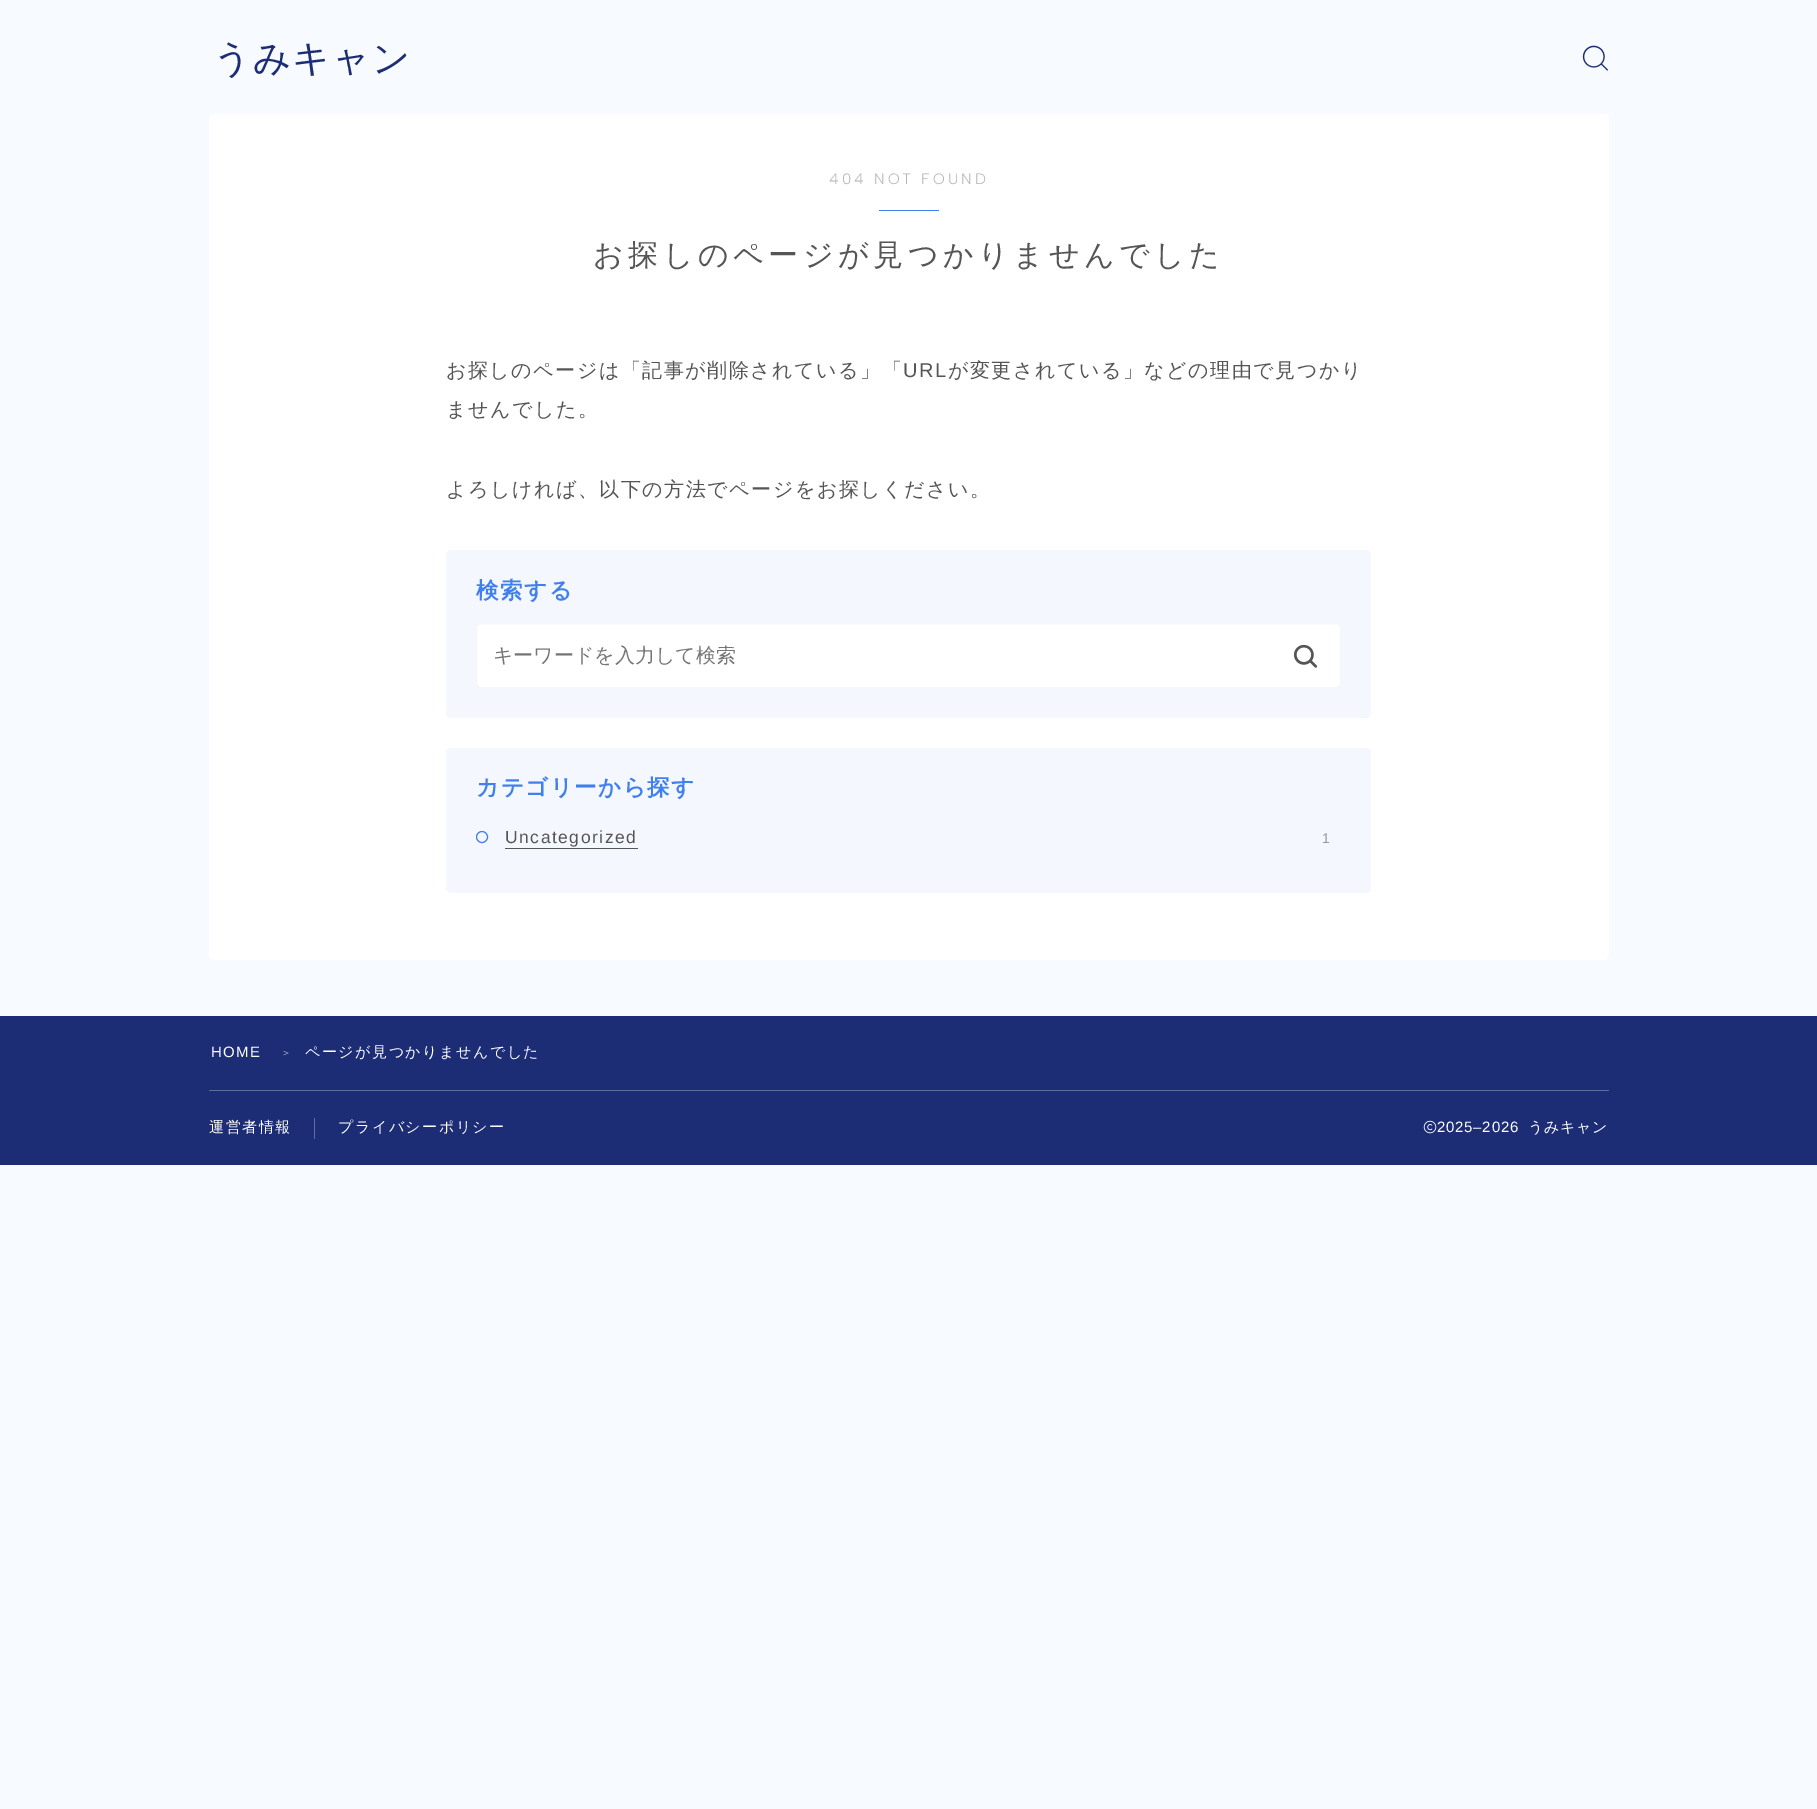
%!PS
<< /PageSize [1817 1809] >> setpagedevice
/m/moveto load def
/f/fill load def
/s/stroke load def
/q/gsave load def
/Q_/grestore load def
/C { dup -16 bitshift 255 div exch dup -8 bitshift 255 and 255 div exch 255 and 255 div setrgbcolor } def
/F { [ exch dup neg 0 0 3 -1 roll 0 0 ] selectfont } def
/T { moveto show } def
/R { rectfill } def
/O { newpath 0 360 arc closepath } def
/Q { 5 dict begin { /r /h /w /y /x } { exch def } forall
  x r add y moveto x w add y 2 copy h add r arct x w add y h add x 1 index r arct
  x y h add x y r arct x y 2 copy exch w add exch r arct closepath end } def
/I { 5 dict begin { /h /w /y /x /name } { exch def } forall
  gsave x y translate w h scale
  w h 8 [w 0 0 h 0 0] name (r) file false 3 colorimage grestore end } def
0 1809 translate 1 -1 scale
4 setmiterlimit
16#F7FAFF C
0 0 1817 1809 R
/WenQuanYiZenHei-Medium 37.5 F
16#1D2D75 C
213 71 m 1.25 0 (うみキャン) ashow
(1.rgb) 1582 45 26 26 I
16#FFFFFF C
209 114 1400 846 5 Q f
/AlbertSans-Light 15 F
16#B3B3B3 C
829 184 m 3 0 (404 NOT FOUND) ashow
16#407FED C
879 210 60 1 R
/WenQuanYiZenHei-Medium 30 F
16#555555 C
593 265 m 4.5 0 (お探しのページが見つかりませんでした) ashow
/WenQuanYiZenHei-Medium 20 F
446 377 m 1.5 0 (お探しのページは「記事が削除されている」「) ashow
/LiberationSans-Regular 20 F
903 377 m 1.5 0 (URL) ashow
/WenQuanYiZenHei-Medium 20 F
948 377 m 1.5 0 (が変更されている」などの理由で見つかり) ashow
446 416 m 1.5 0 (ませんでした。) ashow
446 496 m 1.5 0 (よろしければ、以下の方法でページをお探しください。) ashow
16#F4F8FE C
446 550 925 168 5 Q f
/WenQuanYiZenHei-Bold 22.5 F
16#407FED C
476 598 m 1.5 0 (検索する) ashow
16#FFFFFF C
476.5 623.5 864 64 4.5 Q q f Q_
16#F6F6F6 C
s
/WenQuanYiZenHei-Medium 20 F
16#757575 C
(キーワードを入力して検索) 493 662 T
(2.rgb) 1293 644 25 24 I
16#F4F8FE C
446 748 925 145 5 Q f
/WenQuanYiZenHei-Bold 22.5 F
16#407FED C
476 795 m 1.5 0 (カテゴリーから探す) ashow
482 837 5.5 O s
/LiberationSans-Regular 17.5 F
16#555555 C
505 843 m 1.5 0 (Uncategorized) ashow
16#565656 C
505 848 133 1 R
/LiberationSans-Regular 14 F
16#959799 C
(1) 1322 843 T
16#1D2D75 C
0 1016 1817 149 R
/LiberationSans-Regular 15 F
16#FFFFFF C
211 1057 m 1.5 0 (HOME) ashow
/WenQuanYiZenHei-Medium 10 F
16#BBC0D6 C
281 1056 m 1 0 (＞) ashow
/WenQuanYiZenHei-Medium 15 F
16#FFFFFF C
305 1057 m 1.5 0 (ページが見つかりませんでした) ashow
16#616C9E C
209 1090 1400 1 R
16#FFFFFF C
209 1132 m 1.5 0 (運営者情報) ashow
16#616C9E C
314 1118 1 21 R
16#FFFFFF C
338 1132 m 1.5 0 (プライバシーポリシー) ashow
(3.rgb) 1423 1120 14 14 I
/LiberationSans-Regular 15 F
1437 1132 m .75 0 (2025–2026) ashow
/WenQuanYiZenHei-Medium 15 F
1528 1132 m .75 0 (うみキャン) ashow
showpage
